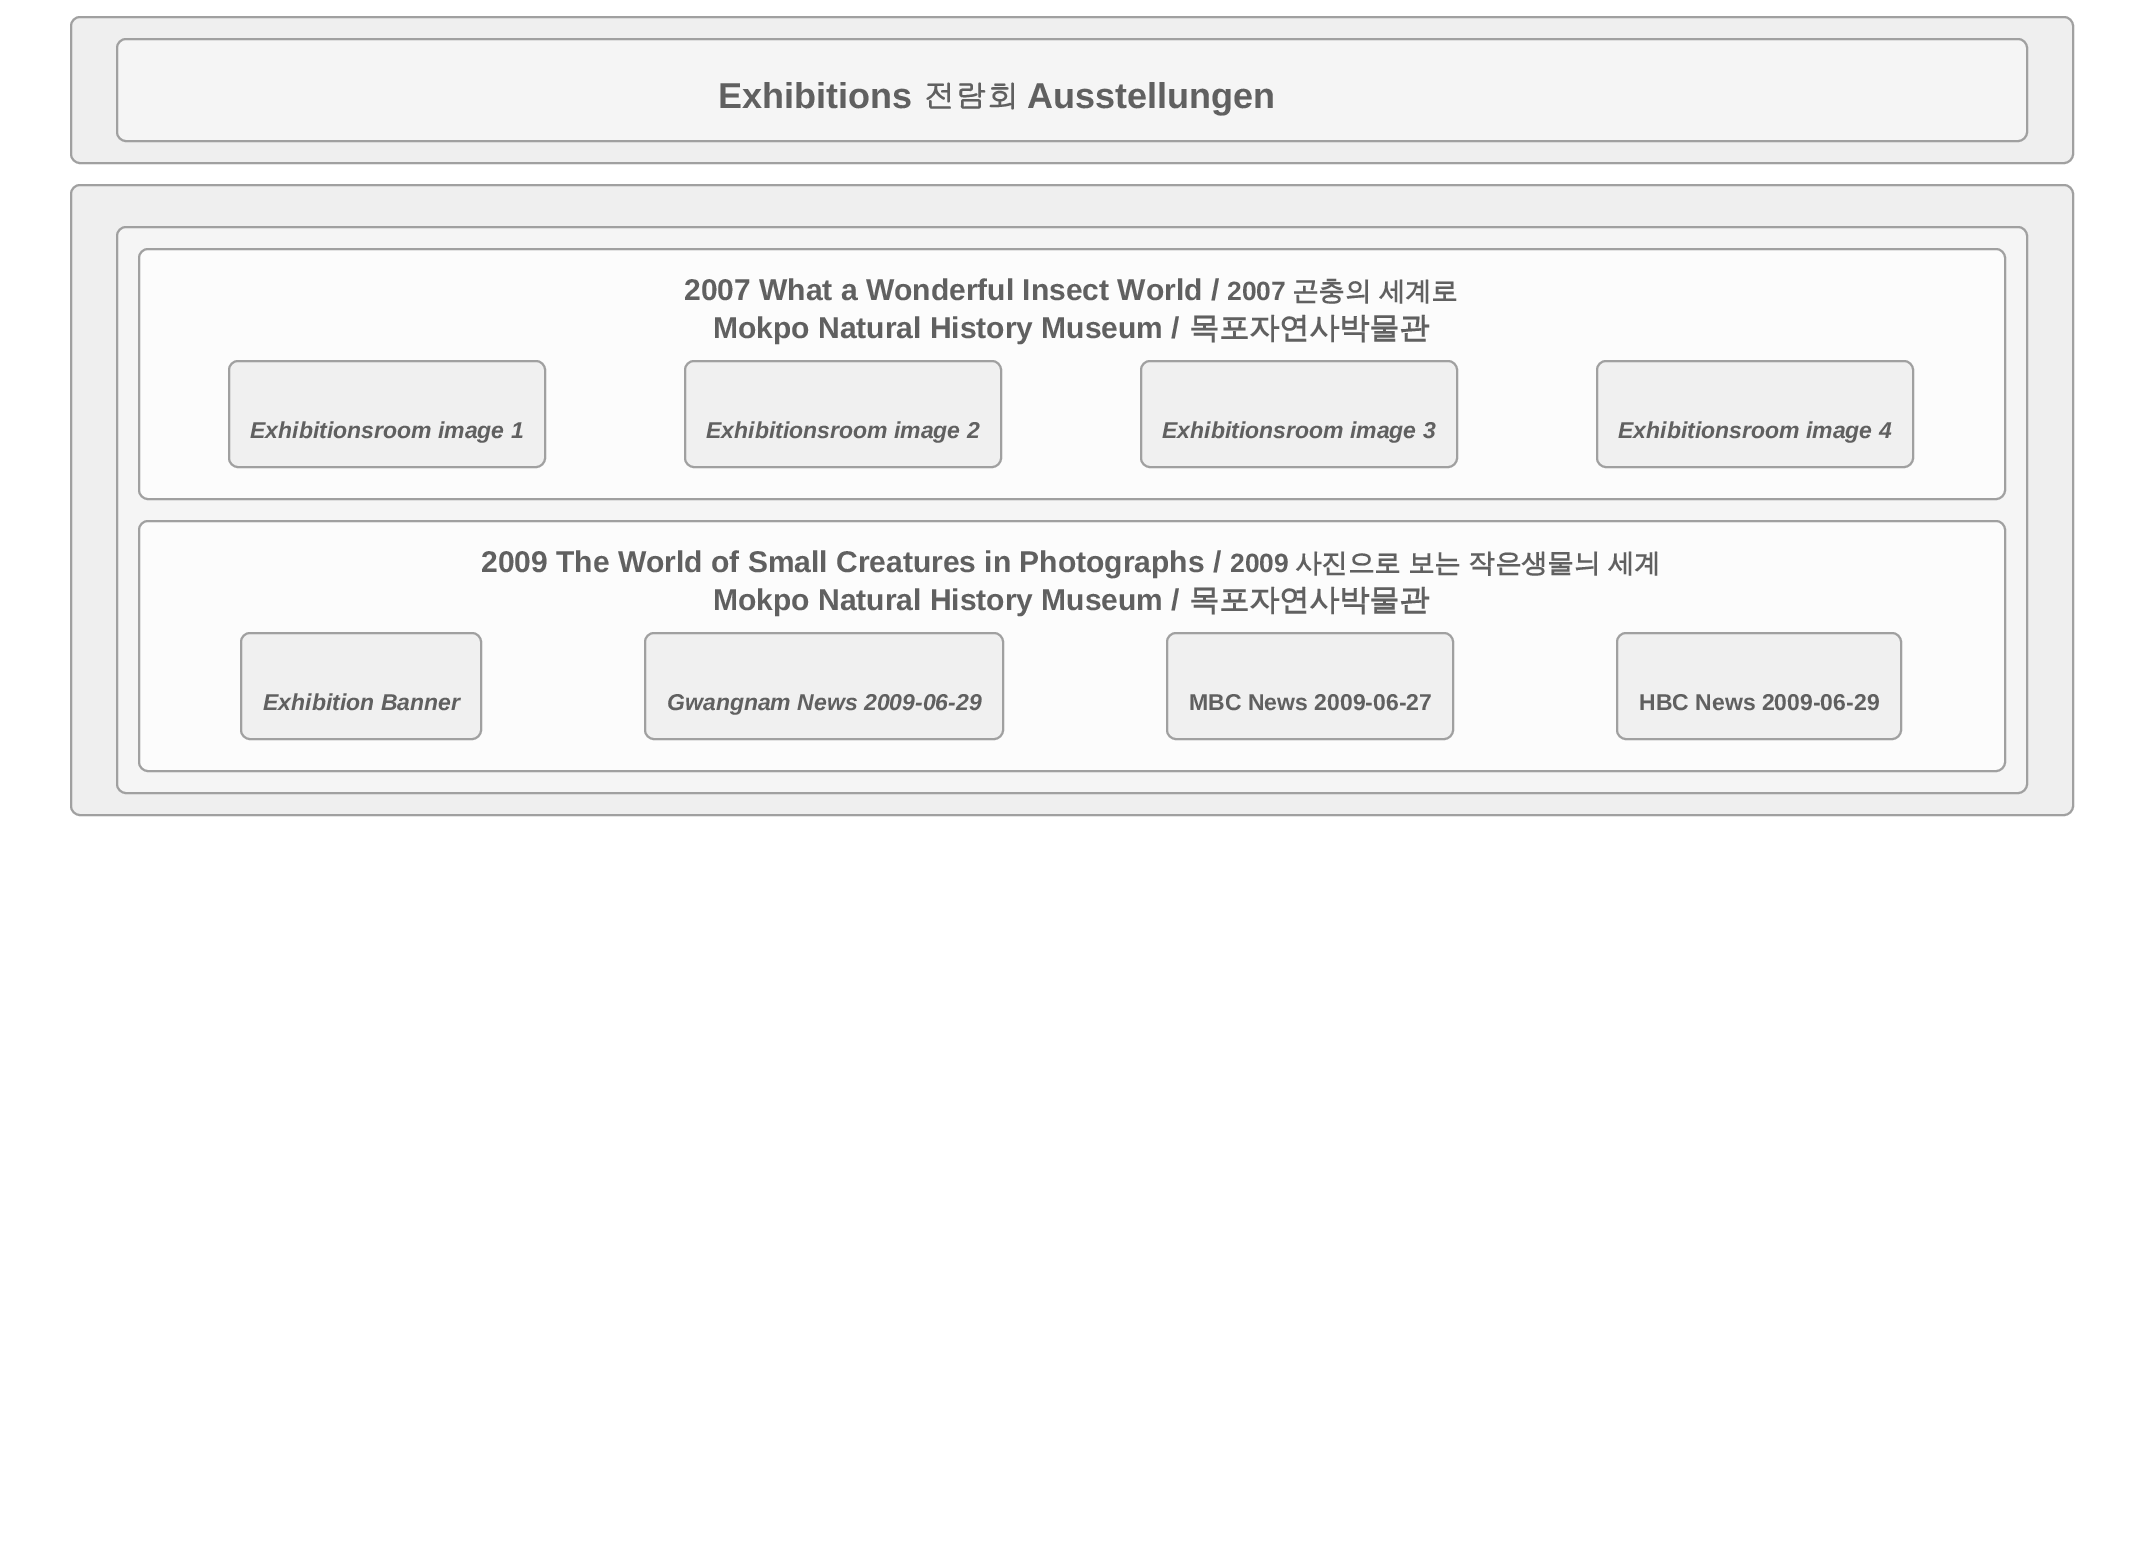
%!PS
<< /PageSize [2138 1562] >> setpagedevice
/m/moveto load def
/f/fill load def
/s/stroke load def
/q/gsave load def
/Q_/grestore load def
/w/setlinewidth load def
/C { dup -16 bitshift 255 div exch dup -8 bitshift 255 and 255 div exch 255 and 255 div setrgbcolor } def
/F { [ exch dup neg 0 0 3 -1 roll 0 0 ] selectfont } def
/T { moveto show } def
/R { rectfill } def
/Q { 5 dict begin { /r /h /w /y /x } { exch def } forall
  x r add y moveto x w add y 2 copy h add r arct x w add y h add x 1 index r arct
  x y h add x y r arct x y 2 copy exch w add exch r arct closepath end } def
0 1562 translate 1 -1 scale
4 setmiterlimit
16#FFFFFF C
0 0 2138 1562 R
16#EFEFEF C
71 17 2002 146 9 Q q f Q_
16#A0A0A0 C
2 w
s
16#F5F5F5 C
117 39 1910 102 9 Q q f Q_
16#A0A0A0 C
s
/LiberationSans-Bold 36 F
16#606060 C
(Exhibitions) 718 108 T
/Gulim-Bold 32 F
(전람회) 923 108 T
/LiberationSans-Bold 36 F
(Ausstellungen) 1027 108 T
16#EFEFEF C
71 185 2002 630 9 Q q f Q_
16#A0A0A0 C
s
16#F5F5F5 C
117 227 1910 566 9 Q q f Q_
16#A0A0A0 C
s
16#FCFCFC C
139 249 1866 250 9 Q q f Q_
16#A0A0A0 C
s
/LiberationSans-Bold 30 F
16#606060 C
(2007 What a Wonderful Insect World /) 684 300 T
/LiberationSans-Bold 26.4 F
(2007) 1227 300 T
/WenQuanYiZenHei-Bold 26.4 F
1292 300 m -.5 0 32 (곤충의 세계로) widthshow
/LiberationSans-Bold 30 F
(Mokpo Natural History Museum /) 713 338 T
/WenQuanYiZenHei-Bold 30 F
(목포자연사박물관) 1189 338 T
16#F0F0F0 C
229 361 316 106 9 Q q f Q_
16#A0A0A0 C
s
/LiberationSans-BoldItalic 23 F
16#606060 C
(Exhibitionsroom image 1) 250 438 T
16#F0F0F0 C
685 361 316 106 9 Q q f Q_
16#A0A0A0 C
s
16#606060 C
(Exhibitionsroom image 2) 706 438 T
16#F0F0F0 C
1141 361 316 106 9 Q q f Q_
16#A0A0A0 C
s
16#606060 C
(Exhibitionsroom image 3) 1162 438 T
16#F0F0F0 C
1597 361 316 106 9 Q q f Q_
16#A0A0A0 C
s
16#606060 C
(Exhibitionsroom image 4) 1618 438 T
16#FCFCFC C
139 521 1866 250 9 Q q f Q_
16#A0A0A0 C
s
/LiberationSans-Bold 30 F
16#606060 C
(2009 The World of Small Creatures in Photographs /) 481 572 T
/LiberationSans-Bold 26.4 F
(2009) 1230 572 T
/WenQuanYiZenHei-Bold 26.4 F
1295 572 m -.5 0 32 (사진으로 보는 작은생물늬 세계) widthshow
/LiberationSans-Bold 30 F
(Mokpo Natural History Museum /) 713 610 T
/WenQuanYiZenHei-Bold 30 F
(목포자연사박물관) 1189 610 T
16#F0F0F0 C
241 633 240 106 9 Q q f Q_
16#A0A0A0 C
s
/LiberationSans-BoldItalic 23 F
16#606060 C
(Exhibition Banner) 263 710 T
16#F0F0F0 C
645 633 358 106 9 Q q f Q_
16#A0A0A0 C
s
16#606060 C
(Gwangnam News 2009-06-29) 667 710 T
16#F0F0F0 C
1167 633 286 106 9 Q q f Q_
16#A0A0A0 C
s
/LiberationSans-Bold 23 F
16#606060 C
(MBC News 2009-06-27) 1189 710 T
16#F0F0F0 C
1617 633 284 106 9 Q q f Q_
16#A0A0A0 C
s
16#606060 C
(HBC News 2009-06-29) 1639 710 T
showpage
